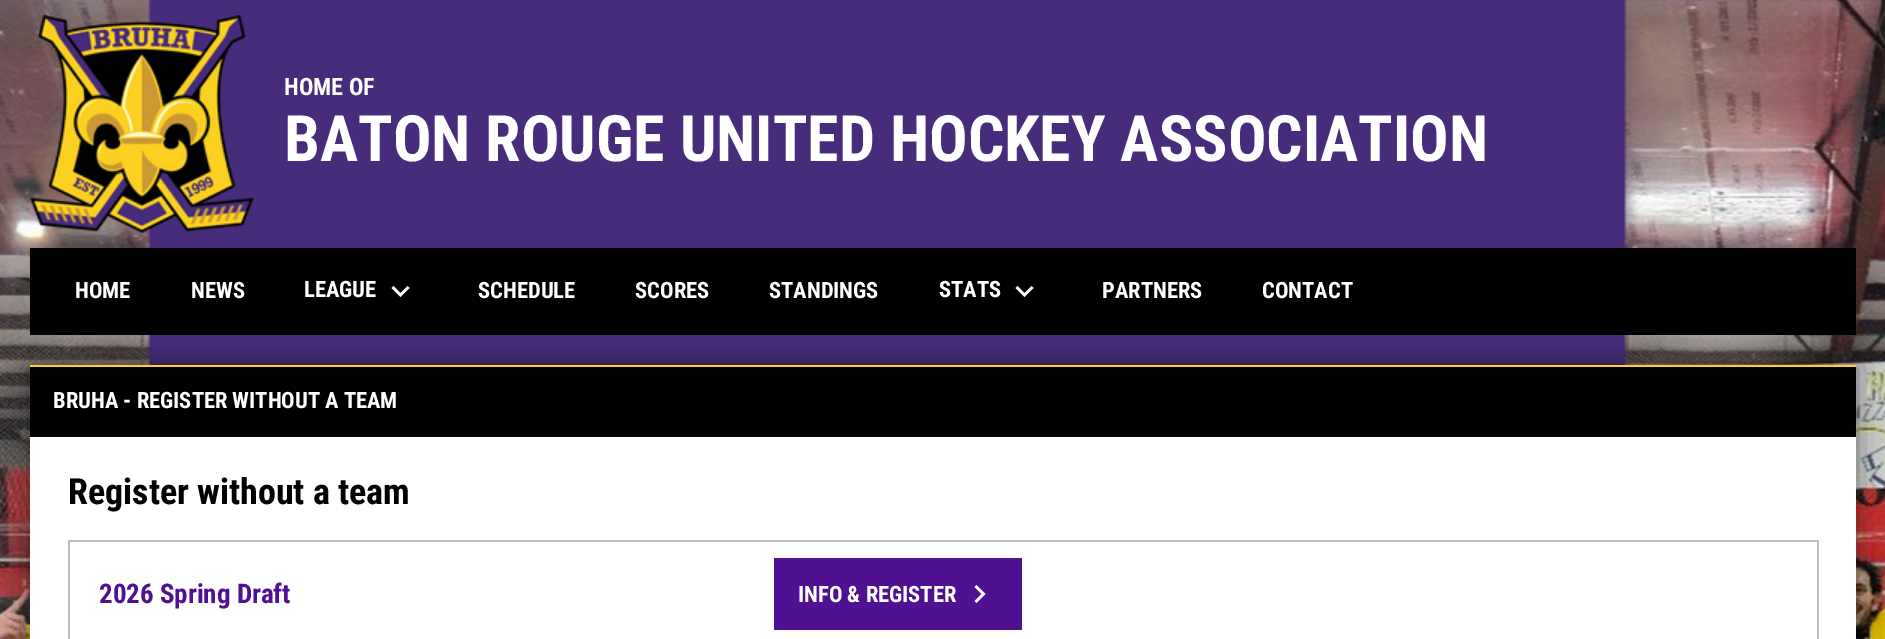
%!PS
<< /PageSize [1885 639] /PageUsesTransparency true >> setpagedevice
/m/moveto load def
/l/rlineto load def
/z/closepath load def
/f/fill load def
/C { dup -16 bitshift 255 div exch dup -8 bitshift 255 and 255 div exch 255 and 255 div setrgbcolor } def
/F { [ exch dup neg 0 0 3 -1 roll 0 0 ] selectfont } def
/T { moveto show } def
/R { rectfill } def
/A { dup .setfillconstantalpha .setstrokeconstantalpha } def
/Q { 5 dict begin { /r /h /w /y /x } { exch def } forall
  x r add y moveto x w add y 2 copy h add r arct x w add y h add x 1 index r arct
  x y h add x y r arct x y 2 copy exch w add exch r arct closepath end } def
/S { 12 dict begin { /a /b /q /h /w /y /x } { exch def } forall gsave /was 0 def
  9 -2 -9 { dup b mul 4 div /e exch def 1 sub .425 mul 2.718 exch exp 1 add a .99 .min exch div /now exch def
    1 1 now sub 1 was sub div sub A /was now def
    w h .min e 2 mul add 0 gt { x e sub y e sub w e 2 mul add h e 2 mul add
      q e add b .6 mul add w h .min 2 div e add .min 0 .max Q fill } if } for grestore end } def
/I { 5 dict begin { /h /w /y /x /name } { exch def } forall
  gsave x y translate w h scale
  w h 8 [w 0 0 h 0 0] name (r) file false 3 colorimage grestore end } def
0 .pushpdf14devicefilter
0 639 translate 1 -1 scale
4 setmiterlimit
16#FFFFFF C
0 0 1885 639 R
(1.rgb) 0 0 1885 639 I
(2.rgb) 30 15 224 218 I
/RobotoCondensed-Bold 24 F
(HOME OF) 284 95 T
/RobotoCondensed-Bold 64 F
(BATON ROUGE UNITED HOCKEY ASSOCIATION) 284 161 T
16#000000 C
30 365 1826 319 0 15 .5 S
30 248 1826 87 R
/RobotoCondensed-Bold 22.5 F
16#FFFFFF C
(HOME) 75 298 T
(NEWS) 191 298 T
(LEAGUE) 304 297 T
393.5 286 m 7 7 l 7 -7 l 2 2 l -9 9 l -9 -9 l z f
(SCHEDULE) 478 298 T
(SCORES) 635 298 T
(STANDINGS) 769 298 T
(STATS) 939 297 T
1017.5 286 m 7 7 l 7 -7 l 2 2 l -9 9 l -9 -9 l z f
(PARTNERS) 1102 298 T
(CONTACT) 1262 298 T
16#000000 C
30 367 1826 70 R
16#FCD121 C
30 365 1826 2 R
16#FFFFFF C
(BRUHA - REGISTER WITHOUT A TEAM) 53 408 T
30 437 1826 202 R
/RobotoCondensed-Bold 36 F
16#000000 C
(Register without a team) 68 504 T
16#BEBEBE C
68 540 1750 2 R
1817 540 2 99 R
68 540 2 99 R
/RobotoCondensed-Bold 27 F
16#4F1091 C
(2026 Spring Draft) 99 603 T
774 558 248 72 R
/RobotoCondensed-Bold 22.5 F
16#FFFFFF C
(INFO & REGISTER) 798 602 T
974.5 601 m 7 -7 l -7 -7 l 2 -2 l 9 9 l -9 9 l z f
.poppdf14devicefilter showpage
